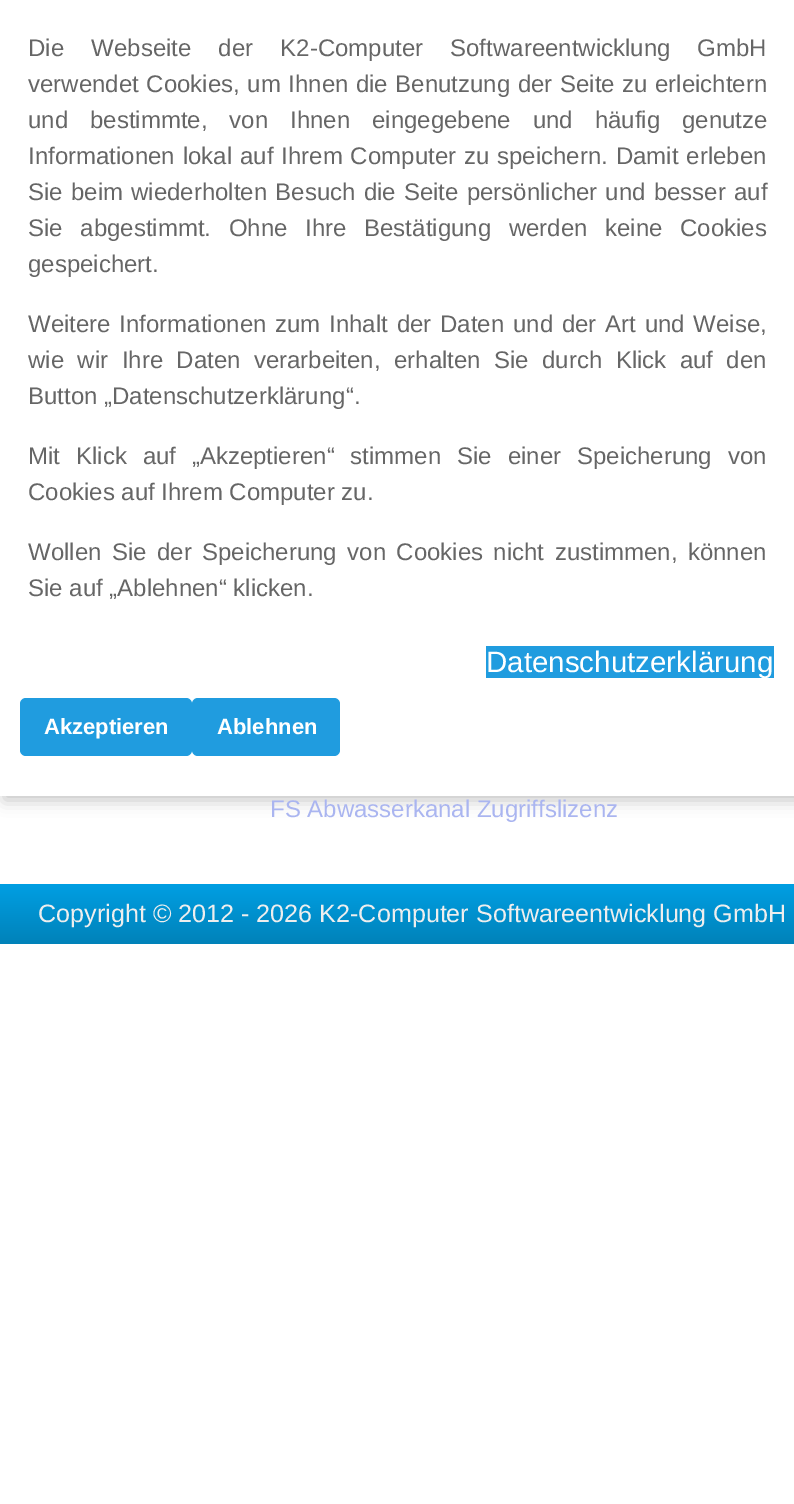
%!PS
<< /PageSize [794 1504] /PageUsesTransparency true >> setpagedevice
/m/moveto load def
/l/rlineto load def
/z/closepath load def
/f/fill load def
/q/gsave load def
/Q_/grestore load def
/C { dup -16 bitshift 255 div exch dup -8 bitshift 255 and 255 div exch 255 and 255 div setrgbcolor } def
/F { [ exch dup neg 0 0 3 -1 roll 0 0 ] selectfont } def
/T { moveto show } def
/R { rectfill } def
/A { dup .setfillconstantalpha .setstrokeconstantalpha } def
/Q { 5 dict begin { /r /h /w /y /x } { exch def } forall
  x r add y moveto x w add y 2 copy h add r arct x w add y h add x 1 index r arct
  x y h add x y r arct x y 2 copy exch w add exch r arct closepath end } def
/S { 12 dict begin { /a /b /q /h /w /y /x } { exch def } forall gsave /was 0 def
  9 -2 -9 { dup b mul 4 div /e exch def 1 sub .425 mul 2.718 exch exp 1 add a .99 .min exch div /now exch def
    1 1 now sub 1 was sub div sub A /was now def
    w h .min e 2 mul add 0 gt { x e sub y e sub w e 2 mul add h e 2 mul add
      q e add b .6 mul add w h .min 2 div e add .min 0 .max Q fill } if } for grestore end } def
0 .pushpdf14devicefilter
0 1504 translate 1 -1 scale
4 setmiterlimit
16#FFFFFF C
0 0 794 1504 R
16#C3C3C3 C
4 4 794 796 0 8 1 S
16#FFFFFF C
0 0 794 796 R
/LiberationSans-Regular 24 F
16#666666 C
28 56 m 20.5 0 32 (Die Webseite der K2-Computer Softwareentwicklung GmbH) widthshow
28 92 m .9 0 32 (verwendet Cookies, um Ihnen die Benutzung der Seite zu erleichtern) widthshow
28 128 m 15.25 0 32 (und bestimmte, von Ihnen eingegebene und häufig genutze) widthshow
28 164 m 1.25 0 32 (Informationen lokal auf Ihrem Computer zu speichern. Damit erleben) widthshow
28 200 m 1.5 0 32 (Sie beim wiederholten Besuch die Seite persönlicher und besser auf) widthshow
28 236 m 11 0 32 (Sie abgestimmt. Ohne Ihre Bestätigung werden keine Cookies) widthshow
(gespeichert.) 28 272 T
28 332 m 2.1 0 32 (Weitere Informationen zum Inhalt der Daten und der Art und Weise,) widthshow
28 368 m 6.75 0 32 (wie wir Ihre Daten verarbeiten, erhalten Sie durch Klick auf den) widthshow
(Button „Datenschutzerklärung“.) 28 404 T
28 464 m 9.25 0 32 (Mit Klick auf „Akzeptieren“ stimmen Sie einer Speicherung von) widthshow
(Cookies auf Ihrem Computer zu.) 28 500 T
28 560 m 3.75 0 32 (Wollen Sie der Speicherung von Cookies nicht zustimmen, können) widthshow
(Sie auf „Ablehnen“ klicken.) 28 596 T
16#209CDF C
486 646 288 32 R
/LiberationSans-Regular 29.5 F
16#FFFFFF C
(Datenschutzerklärung) 486 672 T
16#209CDF C
20 698 172 58 6 Q f
/LiberationSans-Bold 22 F
16#FFFFFF C
(Akzeptieren) 44 734 T
16#209CDF C
192 698 148 58 6 Q f
16#FFFFFF C
(Ablehnen) 217 734 T
/LiberationSans-Regular 24 F
16#AAB5F0 C
(FS Abwasserkanal Zugriffslizenz) 270 817 T
q 0 884 m 794 0 l 0 60 l -794 0 l z clip newpath
<< /ShadingType 2 /ColorSpace /DeviceRGB /Coords [397 884 397 944] /Extend [true true] /Function << /FunctionType 2 /Domain [0 1] /C0 [0 .624 .89] /C1 [0 .51 .725] /N 1 >> >> shfill Q_
/LiberationSans-Regular 25.15 F
16#EEEEEE C
(Copyright © 2012 - 2026 K2-Computer Softwareentwicklung GmbH) 38 922 T
.poppdf14devicefilter showpage
